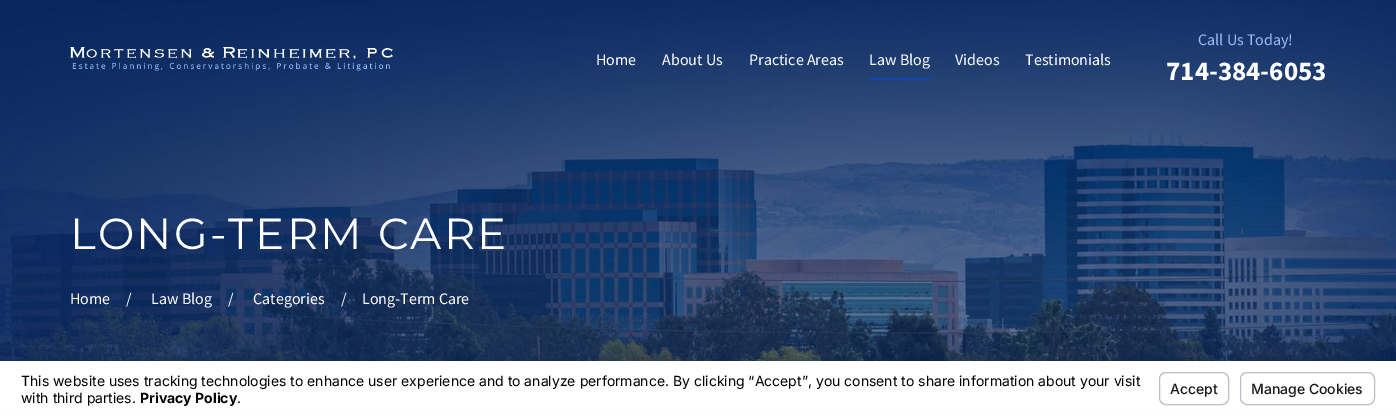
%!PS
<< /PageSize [1396 416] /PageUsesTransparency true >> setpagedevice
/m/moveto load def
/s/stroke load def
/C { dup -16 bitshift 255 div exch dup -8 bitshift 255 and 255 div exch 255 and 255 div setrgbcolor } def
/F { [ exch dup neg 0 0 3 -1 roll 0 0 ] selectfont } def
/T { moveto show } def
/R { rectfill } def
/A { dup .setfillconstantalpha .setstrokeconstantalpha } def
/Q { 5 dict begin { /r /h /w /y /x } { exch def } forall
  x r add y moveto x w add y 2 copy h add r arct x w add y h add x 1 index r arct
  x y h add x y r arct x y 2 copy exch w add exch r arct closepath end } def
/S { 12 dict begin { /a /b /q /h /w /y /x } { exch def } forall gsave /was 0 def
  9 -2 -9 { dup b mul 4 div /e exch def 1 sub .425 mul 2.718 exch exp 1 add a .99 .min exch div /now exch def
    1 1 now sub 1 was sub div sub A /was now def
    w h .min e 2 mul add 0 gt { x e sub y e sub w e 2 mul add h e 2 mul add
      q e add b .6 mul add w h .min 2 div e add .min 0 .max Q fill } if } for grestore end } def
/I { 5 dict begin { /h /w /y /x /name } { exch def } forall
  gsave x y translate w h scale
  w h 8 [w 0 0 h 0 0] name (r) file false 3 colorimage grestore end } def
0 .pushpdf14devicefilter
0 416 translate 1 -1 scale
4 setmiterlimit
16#FFFFFF C
0 0 1396 416 R
(2.rgb) 0 0 1396 361 I
(1.rgb) 70 47 323 24 I
/SourceSansPro-Regular 16 F
(Home) 596 65 T
(About Us) 662 65 T
(Practice Areas) 749 65 T
(Law Blog) 869 65 T
16#1046AD C
869 78 61 2 R
16#FFFFFF C
(Videos) 955 65 T
(Testimonials) 1025 65 T
16#9BBBF6 C
(Call Us Today!) 1198 45 T
/SourceSansPro-Bold 27 F
16#FFFFFF C
(714-384-6053) 1166 80 T
/Montserrat-Regular 43.4 F
70 249 m 2.2 0 (LONG-TERM CARE) ashow
/SourceSansPro-Regular 16 F
(Home) 70 304 T
(/) 126 304 T
(Law Blog) 151 304 T
(/) 228 304 T
(Categories) 253 304 T
(/) 341 304 T
(Long-Term Care) 362 304 T
16#000000 C
0 357 1396 55 0 1.5 .05 S
16#FFFFFF C
0 361 1396 52 R
/Inter-Regular 14 F
16#000000 C
(This website uses tracking technologies to enhance user experience and to analyze performance. By clicking “Accept”, you consent to share information about your visit) 21 386 T
(with third parties.) 21 403 T
/Inter-Bold 14 F
(Privacy Policy) 140 403 T
/Inter-Regular 14 F
(.) 237 403 T
16#BCBEC7 C
1159.5 372.5 69 32 6.5 Q s
/Inter-Medium 14 F
16#191919 C
(Accept) 1170 394 T
16#BCBEC7 C
1240.5 372.5 134 32 6.5 Q s
16#191919 C
(Manage Cookies) 1251 394 T
.poppdf14devicefilter showpage
